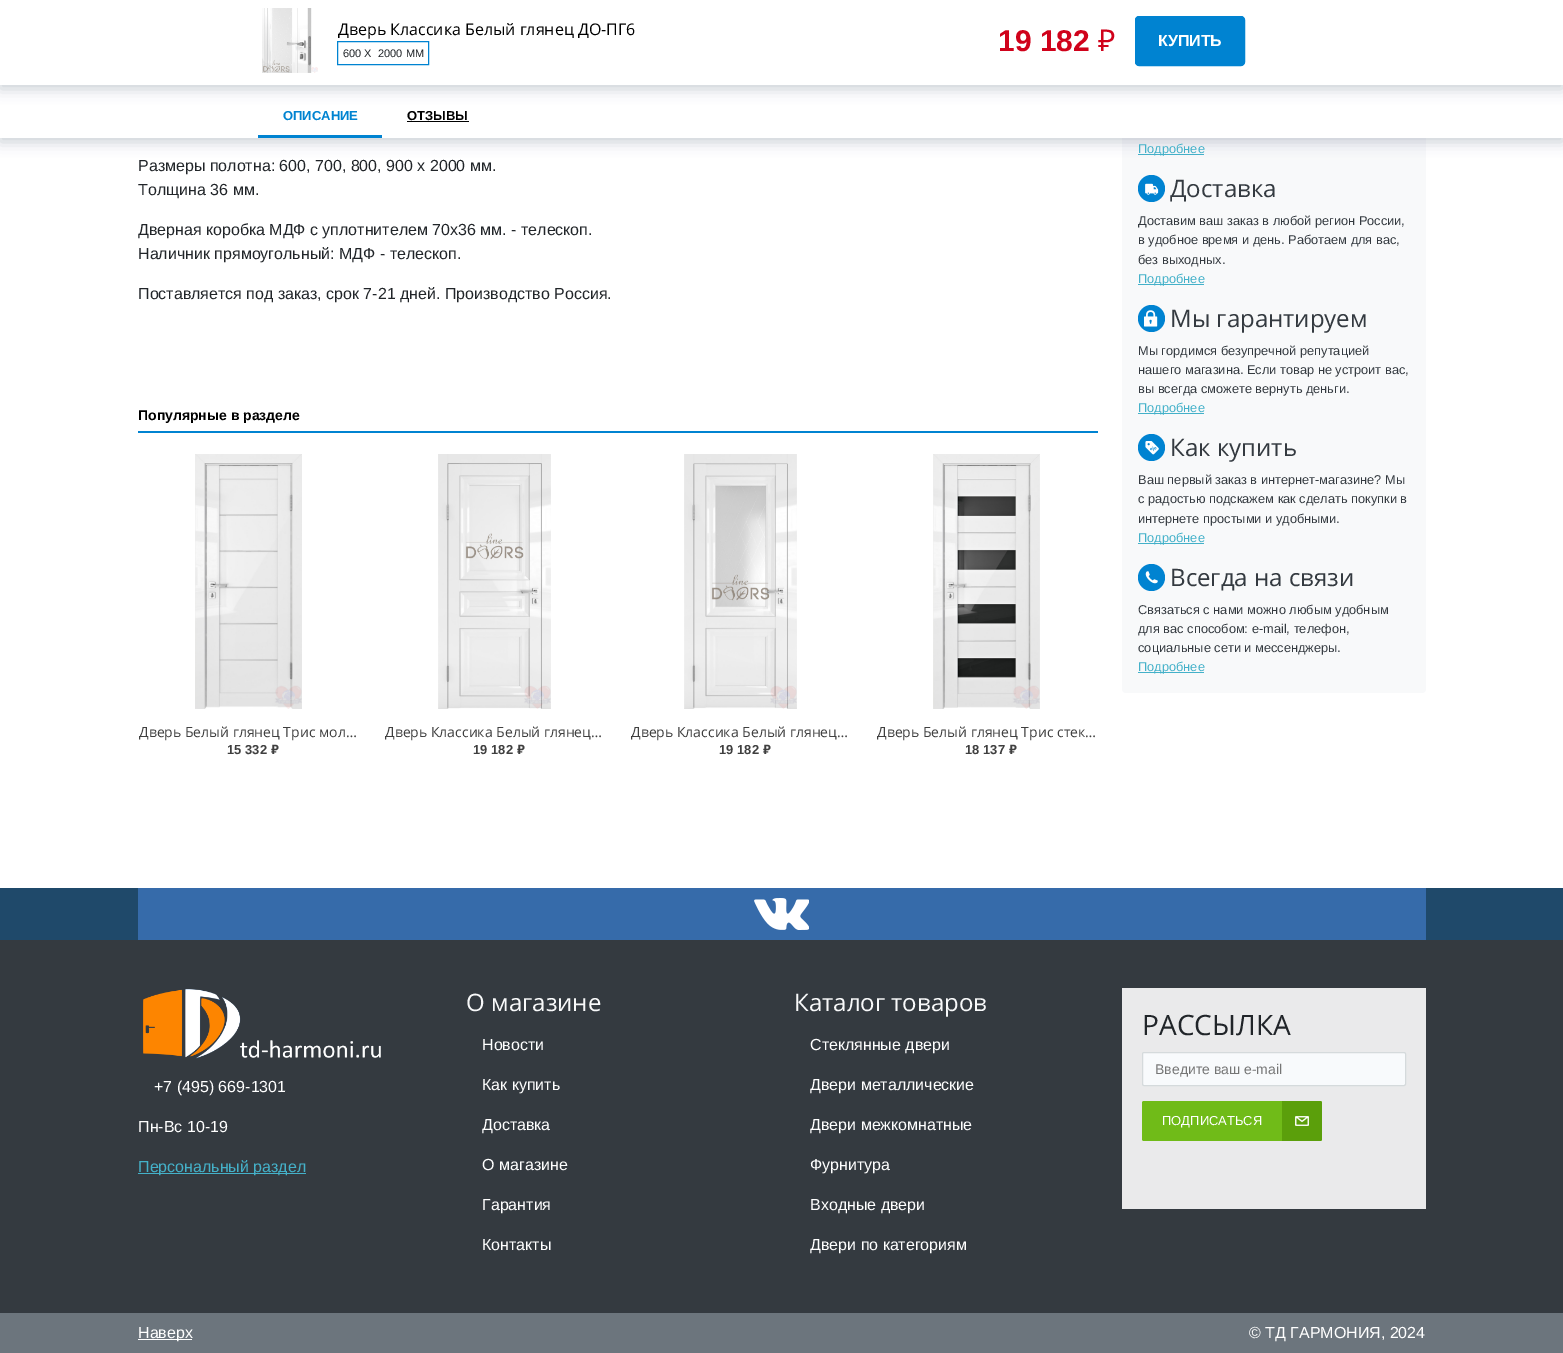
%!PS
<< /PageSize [1563 1353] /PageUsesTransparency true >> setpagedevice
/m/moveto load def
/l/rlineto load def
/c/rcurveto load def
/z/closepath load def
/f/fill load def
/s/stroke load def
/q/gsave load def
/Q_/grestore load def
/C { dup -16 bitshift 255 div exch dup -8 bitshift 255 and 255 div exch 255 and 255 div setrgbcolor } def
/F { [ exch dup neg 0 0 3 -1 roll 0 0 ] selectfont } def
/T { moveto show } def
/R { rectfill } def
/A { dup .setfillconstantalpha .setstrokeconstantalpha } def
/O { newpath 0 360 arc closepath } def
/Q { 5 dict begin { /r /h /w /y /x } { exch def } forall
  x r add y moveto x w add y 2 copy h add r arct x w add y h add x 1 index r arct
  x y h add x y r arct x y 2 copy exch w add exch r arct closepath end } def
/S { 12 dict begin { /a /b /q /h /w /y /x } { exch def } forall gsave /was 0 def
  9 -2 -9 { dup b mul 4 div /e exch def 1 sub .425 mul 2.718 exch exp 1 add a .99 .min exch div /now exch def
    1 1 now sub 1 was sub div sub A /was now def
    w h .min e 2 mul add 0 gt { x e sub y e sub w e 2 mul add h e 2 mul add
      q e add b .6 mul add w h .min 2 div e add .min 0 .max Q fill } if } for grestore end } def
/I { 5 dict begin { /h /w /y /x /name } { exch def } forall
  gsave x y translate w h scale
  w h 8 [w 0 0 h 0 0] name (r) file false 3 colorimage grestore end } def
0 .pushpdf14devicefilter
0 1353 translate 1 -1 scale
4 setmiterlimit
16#FFFFFF C
0 0 1563 1353 R
16#F8F9FA C
1122 29 304 664 4 Q f
16#44B1C9 C
1138 154 66 1 R
16#20364A C
0 89 1563 53 0 7 .23 S
16#FFFFFF C
0 85 1563 53 R
16#20364A C
0 4 1563 85 0 7 .23 S
16#FFFFFF C
0 0 1563 85 R
(1.rgb) 262 8 56 65 I
/OpenSans-Regular 16 F
16#000000 C
(Дверь Классика Белый глянец ДО-ПГ6) 338 35 T
16#0083D1 C
337.5 41.5 91 23 rectstroke
/LiberationSans-Regular 11 F
16#212529 C
(600 Х) 343 57 T
(2000 ММ) 378 57 T
/LiberationSans-Bold 30 F
16#D0021B C
(19 182) 998 51 T
/NotoSans-Regular 30 F
(₽) 1098 51 T
16#0083D1 C
1135.5 16.5 109 49 3.5 Q q f Q_
s
/LiberationSans-Bold 16 F
16#FFFFFF C
(КУПИТЬ) 1158 46 T
/LiberationSans-Bold 13 F
16#0083D1 C
(ОПИСАНИЕ) 283 120 T
258 135 124 3 R
16#000000 C
(ОТЗЫВЫ) 407 120 T
407 121 62 1 R
/LiberationSans-Regular 16 F
16#212529 C
(Размеры полотна: 600, 700, 800, 900 х 2000 мм.) 138 171 T
(Толщина 36 мм.) 138 195 T
(Дверная коробка МДФ с уплотнителем 70х36 мм. - телескоп.) 138 235 T
(Наличник прямоугольный: МДФ - телескоп.) 138 259 T
(Поставляется под заказ, срок 7-21 дней. Производство Россия.) 138 299 T
16#0083D1 C
138 431 960 2 R
/LiberationSans-Bold 14 F
16#000000 C
(Популярные в разделе) 138 420 T
(2.rgb) 195 454 107 255 I
q
139 724 220 17 rectclip
/OpenSans-Regular 14 F
16#3F3F3F C
(Дверь Белый глянец Трис мол…) 139 737 T
Q_
/LiberationSans-Bold 13 F
16#3F3F3F C
(15 332) 227 754 T
/NotoSans-Bold 13 F
(₽) 271 754 T
(3.rgb) 438 454 113 255 I
q
385 724 220 17 rectclip
/OpenSans-Regular 14 F
(Дверь Классика Белый глянец…) 385 737 T
Q_
/LiberationSans-Bold 13 F
(19 182) 473 754 T
/NotoSans-Bold 13 F
(₽) 517 754 T
(4.rgb) 684 454 113 255 I
q
631 724 220 17 rectclip
/OpenSans-Regular 14 F
(Дверь Классика Белый глянец…) 631 737 T
Q_
/LiberationSans-Bold 13 F
(19 182) 719 754 T
/NotoSans-Bold 13 F
(₽) 763 754 T
(5.rgb) 933 454 107 255 I
q
877 724 220 17 rectclip
/OpenSans-Regular 14 F
(Дверь Белый глянец Трис стек…) 877 737 T
Q_
/LiberationSans-Bold 13 F
(18 137) 965 754 T
/NotoSans-Bold 13 F
(₽) 1009 754 T
/LiberationSans-Regular 12.8 F
16#44B1C9 C
(Подробнее) 1138 153 T
16#0083D1 C
1151.5 188.5 13.5 O f
(6.rgb) 1145 183 14 12 I
/OpenSans-Regular 24 F
16#343A40 C
(Доставка) 1170 197 T
/LiberationSans-Regular 12.8 F
(Доставим ваш заказ в любой регион России,) 1138 225 T
(в удобное время и день. Работаем для вас,) 1138 244 T
(без выходных.) 1138 264 T
16#44B1C9 C
1138 284 66 1 R
(Подробнее) 1138 283 T
16#0083D1 C
1151.5 318.5 13.5 O f
(7.rgb) 1144 310 14 17 I
/OpenSans-Regular 24 F
16#343A40 C
(Мы гарантируем) 1170 327 T
/LiberationSans-Regular 12.8 F
(Мы гордимся безупречной репутацией) 1138 355 T
(нашего магазина. Если товар не устроит вас,) 1138 374 T
(вы всегда сможете вернуть деньги.) 1138 393 T
16#44B1C9 C
1138 413 66 1 R
(Подробнее) 1138 412 T
16#0083D1 C
1151.5 447.5 13.5 O f
(8.rgb) 1145 441 14 14 I
/OpenSans-Regular 24 F
16#343A40 C
(Как купить) 1170 456 T
/LiberationSans-Regular 12.8 F
(Ваш первый заказ в интернет-магазине? Мы) 1138 484 T
(с радостью подскажем как сделать покупки в) 1138 503 T
(интернете простыми и удобными.) 1138 523 T
16#44B1C9 C
1138 543 66 1 R
(Подробнее) 1138 542 T
16#0083D1 C
1151.5 577.5 13.5 O f
(9.rgb) 1145 571 13 13 I
/OpenSans-Regular 24 F
16#343A40 C
(Всегда на связи) 1170 586 T
/LiberationSans-Regular 12.8 F
(Связаться с нами можно любым удобным) 1138 614 T
(для вас способом: e-mail, телефон,) 1138 633 T
(социальные сети и мессенджеры.) 1138 652 T
16#44B1C9 C
1138 672 66 1 R
(Подробнее) 1138 671 T
16#1F496A C
0 888 1563 52 R
16#366BAA C
138 888 1288 52 R
(10.rgb) 754 898 55 32 I
16#343A40 C
0 940 1563 373 R
(11.rgb) 143 989 238 70 I
/LiberationSans-Regular 16 F
16#FFFFFF C
(+7 \(495\) 669-1301) 154 1092 T
(Пн-Вс 10-19) 138 1132 T
16#44B1C9 C
138 1173 168 1 R
(Персональный раздел) 138 1172 T
/OpenSans-Regular 24 F
16#F8F9FA C
(О магазине) 466 1011 T
/LiberationSans-Regular 16 F
16#FFFFFF C
(Новости) 482 1050 T
(Как купить) 482 1090 T
(Доставка) 482 1130 T
(О магазине) 482 1170 T
(Гарантия) 482 1210 T
(Контакты) 482 1250 T
/OpenSans-Regular 24 F
16#F8F9FA C
(Каталог товаров) 794 1011 T
/LiberationSans-Regular 16 F
16#FFFFFF C
(Стеклянные двери) 810 1050 T
(Двери металлические) 810 1090 T
(Двери межкомнатные) 810 1130 T
(Фурнитура) 810 1170 T
(Входные двери) 810 1210 T
(Двери по категориям) 810 1250 T
16#EAEAEB C
1122 988 304 221 R
/OpenSans-Regular 28 F
16#212529 C
(РАССЫЛКА) 1142 1035 T
16#F8FAFC C
1142.5 1052.5 263 33 1.5 Q q f Q_
16#D5DADC C
s
/LiberationSans-Regular 14 F
16#757575 C
(Введите ваш e-mail) 1155 1074 T
16#70BB18 C
1142 1101 180 40 2 Q f
/LiberationSans-Regular 13 F
16#FFFFFF C
(ПОДПИСАТЬСЯ) 1162 1125 T
16#5B9F0B C
1282 1101 m 38 0 l 1 0 2 1 2 2 c 0 36 l 0 1 -1 2 -2 2 c -38 0 l z f
(12.rgb) 1295 1116 14 10 I
16#6C757D C
0 1313 1563 40 R
16#FFFFFF C
138 1339 54 1 R
/LiberationSans-Regular 16 F
(Наверх) 138 1338 T
(© ТД ГАРМОНИЯ, 2024) 1249 1338 T
.poppdf14devicefilter showpage
